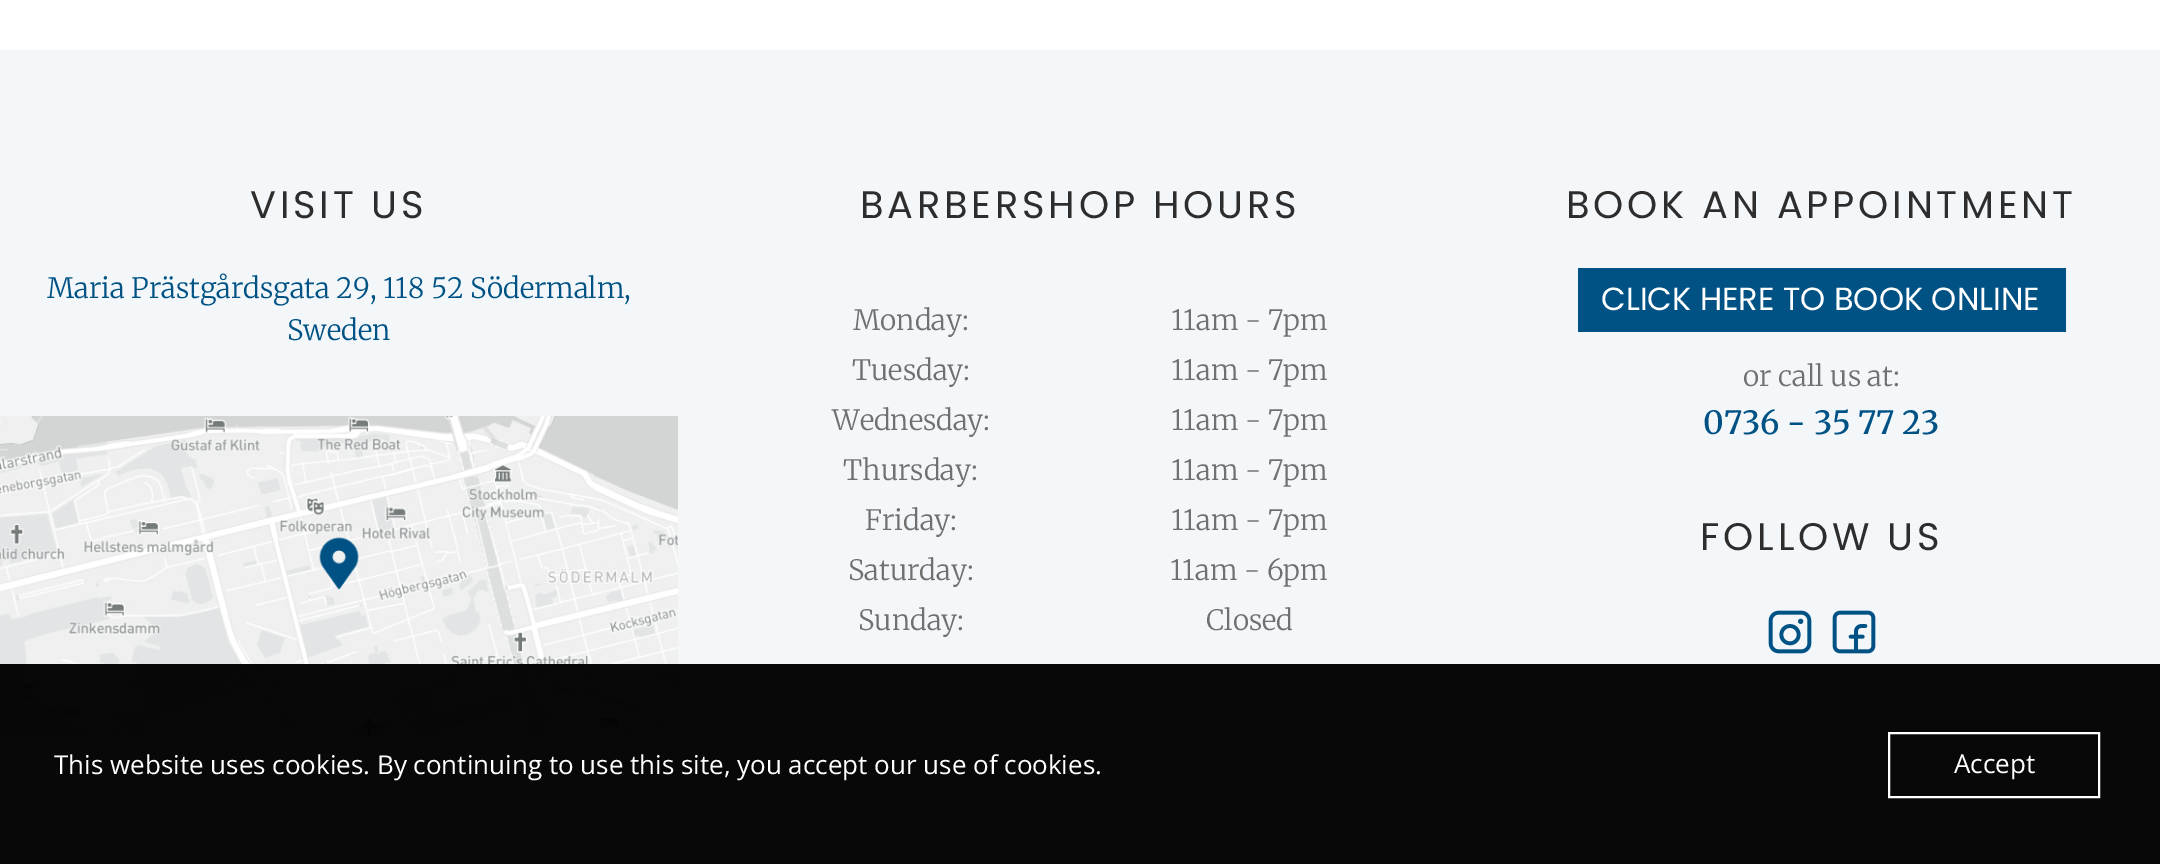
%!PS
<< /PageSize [2160 864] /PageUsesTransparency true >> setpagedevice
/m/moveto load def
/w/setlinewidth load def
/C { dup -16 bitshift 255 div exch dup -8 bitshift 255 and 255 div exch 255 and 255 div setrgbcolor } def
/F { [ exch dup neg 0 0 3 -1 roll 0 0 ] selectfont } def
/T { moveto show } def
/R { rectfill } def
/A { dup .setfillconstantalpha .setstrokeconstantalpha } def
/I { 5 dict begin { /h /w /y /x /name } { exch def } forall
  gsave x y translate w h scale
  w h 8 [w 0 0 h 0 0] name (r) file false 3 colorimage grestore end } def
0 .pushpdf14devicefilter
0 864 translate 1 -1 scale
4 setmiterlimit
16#FFFFFF C
0 0 2160 864 R
16#F3F7FA C
0 50 2160 814 R
/Poppins-Regular 38.4 F
16#2D2D2D C
250 218 m 3.8 0 (VISIT US) ashow
/Merriweather-Light 28 F
16#005285 C
(Maria Prästgårdsgata 29, 118 52 Södermalm,) 47 298 T
(Sweden) 287 340 T
(1.rgb) 0 416 678 320 I
/Poppins-Regular 38.4 F
16#2D2D2D C
860 218 m 3.8 0 (BARBERSHOP HOURS) ashow
/Merriweather-Light 28 F
16#707070 C
(Monday:) 853 330 T
(11am - 7pm) 1171 330 T
(Tuesday:) 852 380 T
(11am - 7pm) 1171 380 T
(Wednesday:) 832 430 T
(11am - 7pm) 1171 430 T
(Thursday:) 843 480 T
(11am - 7pm) 1171 480 T
(Friday:) 865 530 T
(11am - 7pm) 1171 530 T
(Saturday:) 848 580 T
(11am - 6pm) 1170 580 T
(Sunday:) 858 630 T
(Closed) 1206 630 T
/Poppins-Regular 38.4 F
16#2D2D2D C
1566 218 m 3.8 0 (BOOK AN APPOINTMENT) ashow
16#005285 C
1578 268 488 64 R
/Poppins-Regular 32 F
16#FFFFFF C
(CLICK HERE TO BOOK ONLINE) 1601 310 T
/Merriweather-Light 28 F
16#707070 C
(or call us at:) 1743 386 T
/Merriweather-Medium 32 F
16#005285 C
(0736 - 35 77 23) 1703 434 T
/Poppins-Regular 38.4 F
16#2D2D2D C
1700 550 m 3.8 0 (FOLLOW US) ashow
(2.rgb) 1768 610 44 44 I
(3.rgb) 1832 610 44 44 I
0.97 A
16#000000 C
0 664 2160 200 R
/OpenSans-Regular 26 F
1 A
16#FFFFFF C
(This website uses cookies. By continuing to use this site, you accept our use of cookies.) 54 774 T
2 w
1889 733 210 64 rectstroke
(Accept) 1954 773 T
.poppdf14devicefilter showpage
